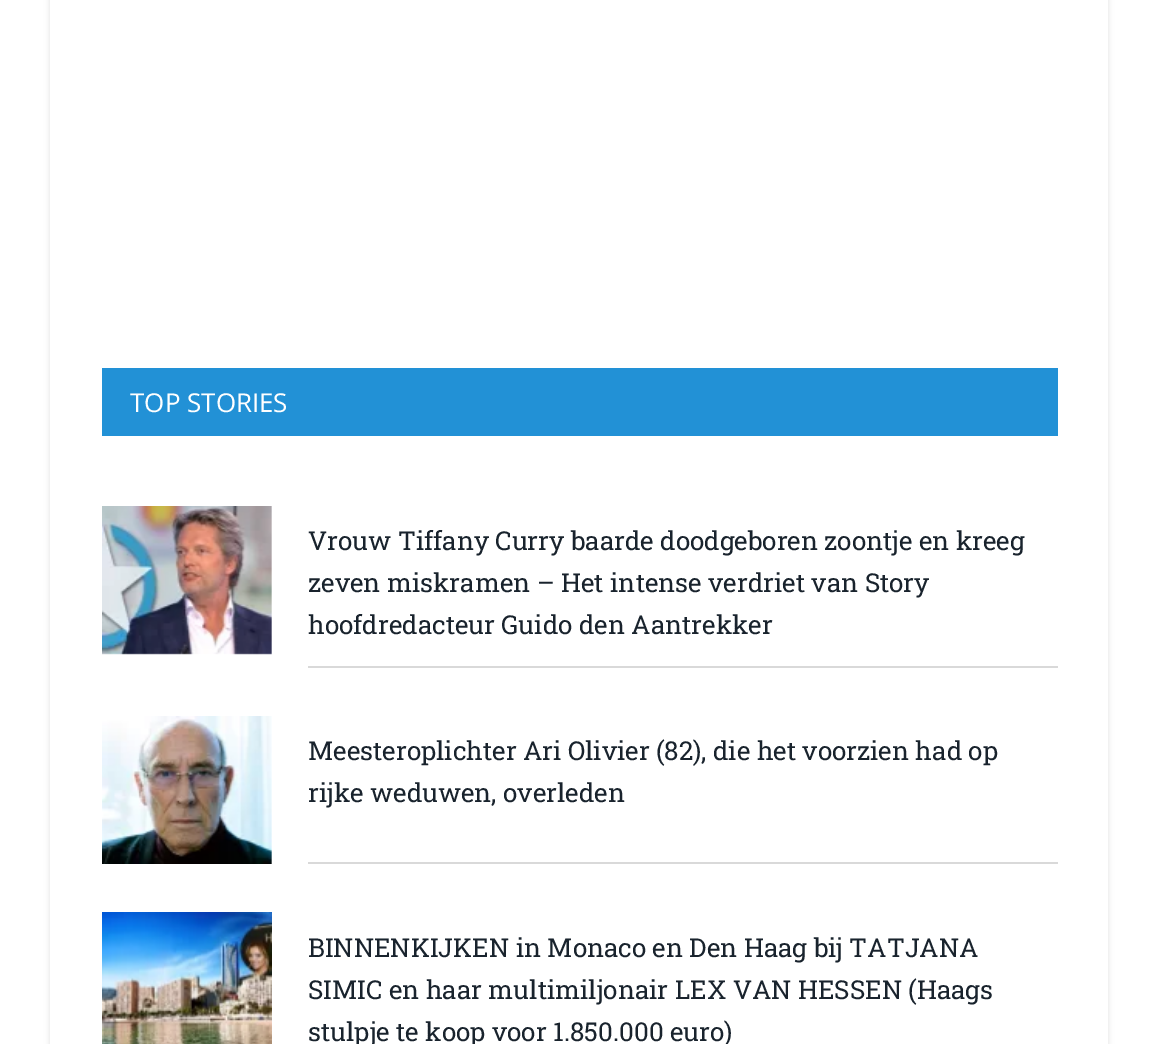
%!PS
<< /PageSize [1157 1044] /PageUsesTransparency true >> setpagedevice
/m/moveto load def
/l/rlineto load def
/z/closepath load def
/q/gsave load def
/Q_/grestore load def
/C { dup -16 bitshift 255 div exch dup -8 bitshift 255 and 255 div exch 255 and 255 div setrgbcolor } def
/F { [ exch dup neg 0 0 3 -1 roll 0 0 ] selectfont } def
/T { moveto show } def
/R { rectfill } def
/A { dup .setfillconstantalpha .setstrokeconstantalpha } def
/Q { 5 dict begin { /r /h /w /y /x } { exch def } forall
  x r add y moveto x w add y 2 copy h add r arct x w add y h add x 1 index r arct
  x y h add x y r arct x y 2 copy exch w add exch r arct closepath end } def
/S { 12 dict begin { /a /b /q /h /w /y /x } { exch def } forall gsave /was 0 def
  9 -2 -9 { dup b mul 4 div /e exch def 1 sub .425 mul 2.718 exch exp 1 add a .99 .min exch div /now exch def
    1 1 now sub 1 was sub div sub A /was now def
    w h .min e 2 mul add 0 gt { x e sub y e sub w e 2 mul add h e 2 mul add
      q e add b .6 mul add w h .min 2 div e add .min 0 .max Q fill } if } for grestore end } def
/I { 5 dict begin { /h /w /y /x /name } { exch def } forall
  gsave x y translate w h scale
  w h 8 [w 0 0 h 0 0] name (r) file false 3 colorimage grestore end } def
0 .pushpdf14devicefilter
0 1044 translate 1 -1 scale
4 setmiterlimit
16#FFFFFF C
0 0 1157 1044 R
q
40 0 m 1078 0 l 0 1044 l -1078 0 l z 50 -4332 m 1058 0 l 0 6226 l -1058 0 l z eoclip newpath
16#000000 C
50 -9 1058 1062 0 3 .12 S
Q_
16#2291D6 C
102 368 956 68 R
/OpenSans-Regular 26 F
16#FFFFFF C
(TOP STORIES) 130 412 T
(1.rgb) 102 506 170 149 I
16#D9D9D9 C
308 666 750 2 R
/RobotoSlab-Regular 26 F
16#19232D C
(Vrouw Tiffany Curry baarde doodgeboren zoontje en kreeg) 308 550 T
(zeven miskramen – Het intense verdriet van Story) 308 592 T
(hoofdredacteur Guido den Aantrekker) 308 634 T
(2.rgb) 102 716 170 148 I
16#D9D9D9 C
308 862 750 2 R
16#19232D C
(Meesteroplichter Ari Olivier \(82\), die het voorzien had op) 308 760 T
(rijke weduwen, overleden) 308 802 T
(3.rgb) 102 912 170 132 I
(BINNENKIJKEN in Monaco en Den Haag bij TATJANA) 308 957 T
(SIMIC en haar multimiljonair LEX VAN HESSEN \(Haags) 308 999 T
(stulpje te koop voor 1.850.000 euro\)) 308 1041 T
.poppdf14devicefilter showpage
